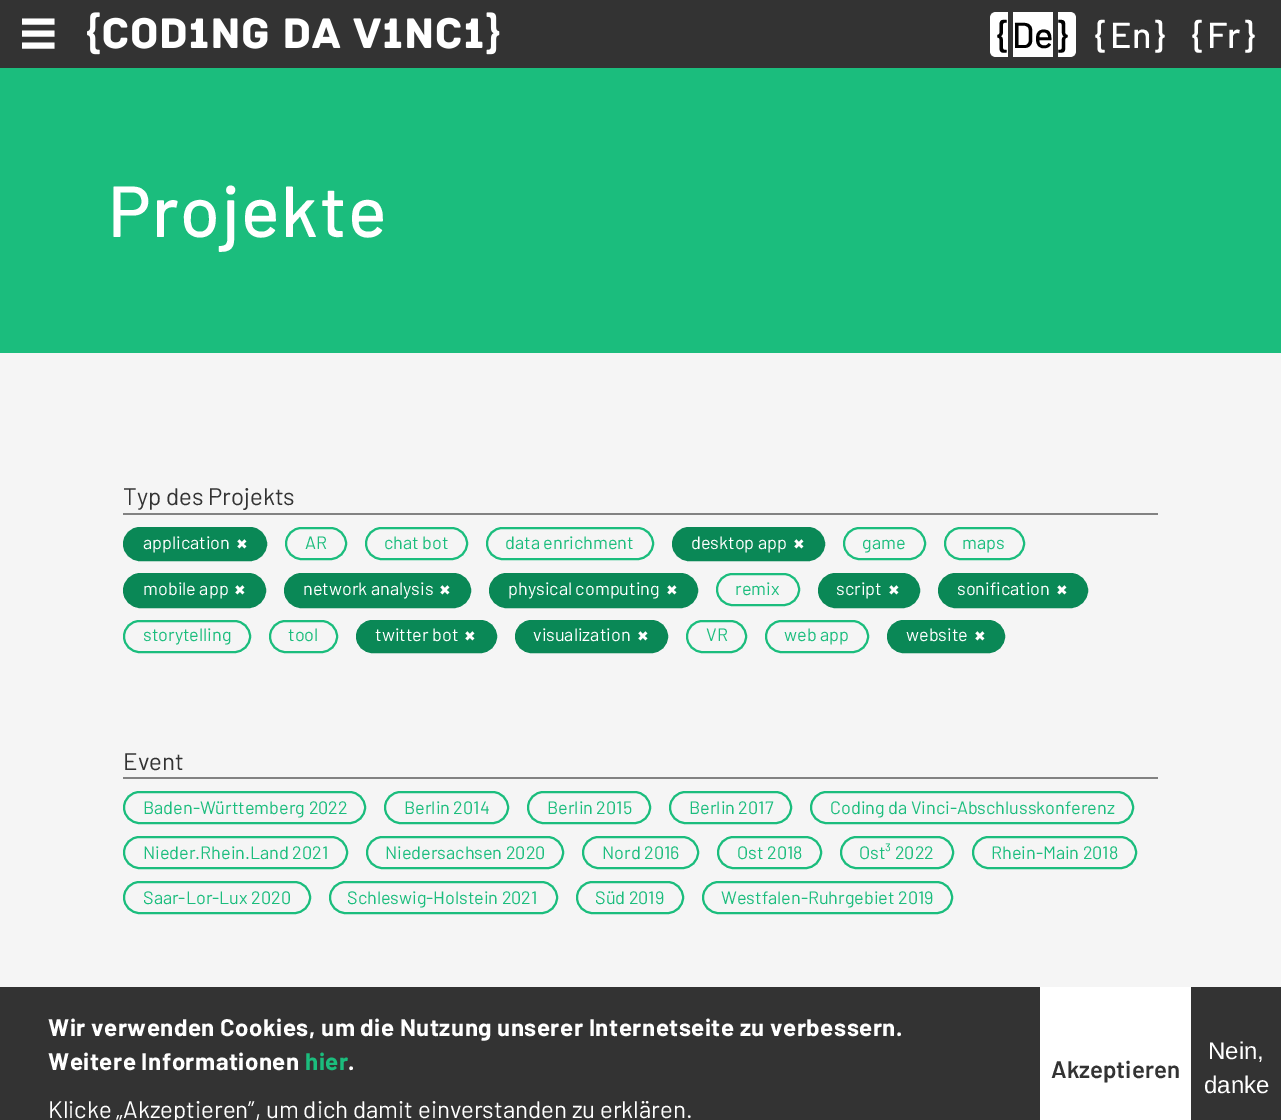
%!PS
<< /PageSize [1281 1120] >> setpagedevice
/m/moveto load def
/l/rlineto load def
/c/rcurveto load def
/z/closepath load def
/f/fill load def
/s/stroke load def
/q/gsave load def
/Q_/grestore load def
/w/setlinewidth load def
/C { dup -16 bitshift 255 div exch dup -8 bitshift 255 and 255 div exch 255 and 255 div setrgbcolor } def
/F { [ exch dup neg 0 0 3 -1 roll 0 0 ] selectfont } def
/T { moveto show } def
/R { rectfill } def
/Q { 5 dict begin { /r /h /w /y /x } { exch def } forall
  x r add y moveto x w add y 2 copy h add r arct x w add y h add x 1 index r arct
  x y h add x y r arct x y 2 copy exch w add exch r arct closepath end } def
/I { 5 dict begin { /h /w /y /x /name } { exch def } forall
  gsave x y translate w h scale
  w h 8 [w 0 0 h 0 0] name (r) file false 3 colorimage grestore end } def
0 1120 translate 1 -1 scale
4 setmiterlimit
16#F5F5F5 C
0 0 1281 1120 R
16#333333 C
0 0 1281 68 R
16#FFFFFF C
6 w
22 21.5 m 32.5 0 l 22 33.5 m 32.5 0 l 22 45.5 m 32.5 0 l s
(1.rgb) 87 12 413 43 I
996 12 m 12 0 l 0 45 l -12 0 l -3.5 0 -6 -2.5 -6 -6 c 0 -33 l 0 -3.5 2.5 -6 6 -6 c z f
/Barlow-Medium 36 F
16#000000 C
({) 996 48 T
16#FFFFFF C
1013 12 40 45 R
16#000000 C
(De) 1012 48 T
16#FFFFFF C
1058 12 m 12 0 l 3.5 0 6 2.5 6 6 c 0 33 l 0 3.5 -2.5 6 -6 6 c -12 0 l z f
16#000000 C
(}) 1057 48 T
16#FFFFFF C
({) 1094 48 T
(En) 1110 48 T
(}) 1154 48 T
({) 1191 48 T
(Fr) 1207 48 T
(}) 1244 48 T
16#1BBD7D C
0 68 1281 285 R
/Barlow-Medium 72 F
16#FFFFFF C
108 237 m 1.5 0 (Projekte) ashow
16#828282 C
123 513 1035 2 R
/Barlow-Regular 24 F
16#333333 C
(Typ des Projekts) 123 505 T
16#0A8856 C
124 528 142 32 16 Q q f Q_
2 w
s
/Barlow-Regular 18 F
16#FFFFFF C
(application) 143 549 T
/DejaVuSans-Regular 14 F
(✖) 236 549 T
16#1BBD7D C
286 528 60 31 15.5 Q s
/Barlow-Regular 18 F
(AR) 305 549 T
366 528 101 31 15.5 Q s
(chat bot) 384 549 T
487 528 166 31 15.5 Q s
(data enrichment) 505 549 T
16#0A8856 C
673 528 151 32 16 Q q f Q_
s
16#FFFFFF C
(desktop app) 691 549 T
/DejaVuSans-Regular 14 F
(✖) 793 549 T
16#1BBD7D C
844 528 81 31 15.5 Q s
/Barlow-Regular 18 F
(game) 862 549 T
945 528 79 31 15.5 Q s
(maps) 962 549 T
16#0A8856 C
124 574 141 33 16.5 Q q f Q_
s
16#FFFFFF C
(mobile app) 143 595 T
/DejaVuSans-Regular 14 F
(✖) 234 595 T
16#0A8856 C
285 574 185 33 16.5 Q q f Q_
s
/Barlow-Regular 18 F
16#FFFFFF C
(network analysis) 303 595 T
/DejaVuSans-Regular 14 F
(✖) 439 595 T
16#0A8856 C
490 574 207 33 16.5 Q q f Q_
s
/Barlow-Regular 18 F
16#FFFFFF C
(physical computing) 508 595 T
/DejaVuSans-Regular 14 F
(✖) 666 595 T
16#1BBD7D C
717 574 82 31 15.5 Q s
/Barlow-Regular 18 F
(remix) 735 595 T
16#0A8856 C
819 574 100 33 16.5 Q q f Q_
s
16#FFFFFF C
(script) 836 595 T
/DejaVuSans-Regular 14 F
(✖) 888 595 T
16#0A8856 C
939 574 148 33 16.5 Q q f Q_
s
/Barlow-Regular 18 F
16#FFFFFF C
(sonification) 957 595 T
/DejaVuSans-Regular 14 F
(✖) 1056 595 T
16#1BBD7D C
124 621 126 31 15.5 Q s
/Barlow-Regular 18 F
(storytelling) 143 641 T
270 621 67 31 15.5 Q s
(tool) 288 641 T
16#0A8856 C
357 621 139 31 15.5 Q q f Q_
s
16#FFFFFF C
(twitter bot) 375 641 T
/DejaVuSans-Regular 14 F
(✖) 464 641 T
16#0A8856 C
516 621 151 31 15.5 Q q f Q_
s
/Barlow-Regular 18 F
16#FFFFFF C
(visualization) 533 641 T
/DejaVuSans-Regular 14 F
(✖) 637 641 T
16#1BBD7D C
687 621 59 31 15.5 Q s
/Barlow-Regular 18 F
(VR) 706 641 T
766 621 102 31 15.5 Q s
(web app) 784 641 T
16#0A8856 C
888 621 116 31 15.5 Q q f Q_
s
16#FFFFFF C
(website) 906 641 T
/DejaVuSans-Regular 14 F
(✖) 974 641 T
16#828282 C
123 777 1035 2 R
/Barlow-Regular 24 F
16#333333 C
(Event) 123 770 T
16#1BBD7D C
124 792 241 31 15.5 Q s
/Barlow-Regular 18 F
(Baden-Württemberg 2022) 143 814 T
385 792 123 31 15.5 Q s
(Berlin 2014) 404 814 T
528 792 122 31 15.5 Q s
(Berlin 2015) 547 814 T
670 792 121 31 15.5 Q s
(Berlin 2017) 689 814 T
811 792 322 31 15.5 Q s
(Coding da Vinci-Abschlusskonferenz) 830 814 T
124 837 223 31 15.5 Q s
(Nieder.Rhein.Land 2021) 143 859 T
367 837 196 31 15.5 Q s
(Niedersachsen 2020) 385 859 T
583 837 115 31 15.5 Q s
(Nord 2016) 602 859 T
718 837 103 31 15.5 Q s
(Ost 2018) 737 859 T
841 837 112 31 15.5 Q s
(Ost³ 2022) 859 859 T
973 837 163 31 15.5 Q s
(Rhein-Main 2018) 991 859 T
124 882 186 31 15.5 Q s
(Saar-Lor-Lux 2020) 143 904 T
330 882 227 31 15.5 Q s
(Schleswig-Holstein 2021) 347 904 T
577 882 106 31 15.5 Q s
(Süd 2019) 595 904 T
703 882 249 31 15.5 Q s
(Westfalen-Ruhrgebiet 2019) 721 904 T
16#333333 C
0 987 1281 133 R
/Barlow-Bold 24 F
16#FFFFFF C
48 1036 m .48 0 (Wir verwenden Cookies, um die Nutzung unserer Internetseite zu verbessern.) ashow
48 1070 m .48 0 (Weitere Informationen) ashow
16#1BBD7D C
305 1070 m .48 0 (hier) ashow
16#FFFFFF C
348 1070 m .48 0 (.) ashow
/Barlow-Regular 24 F
(Klicke „Akzeptieren”, um dich damit einverstanden zu erklären.) 48 1118 T
1040 987 151 133 R
/Barlow-SemiBold 24 F
16#333333 C
(Akzeptieren) 1051 1078 T
/LiberationSans-Regular 24 F
16#FFFFFF C
(Nein,) 1208 1059 T
(danke) 1204 1093 T
showpage
